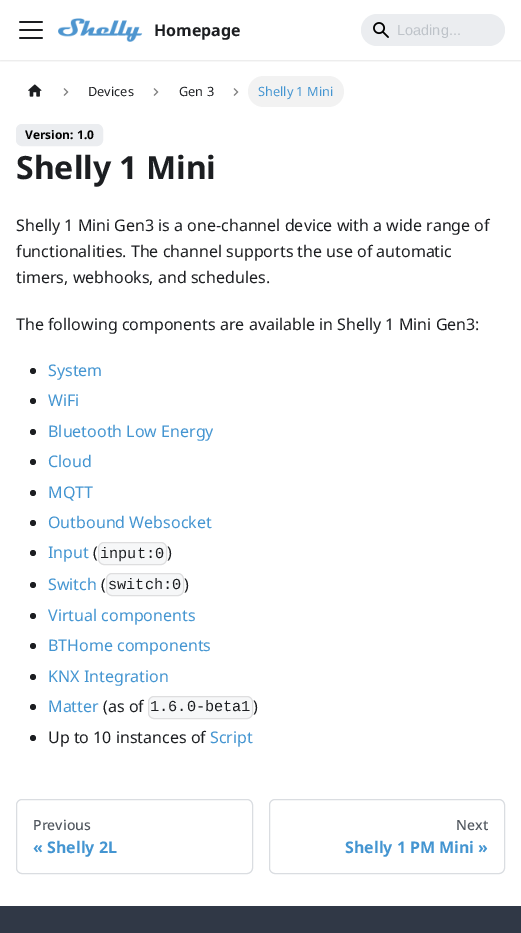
%!PS
<< /PageSize [521 933] /PageUsesTransparency true >> setpagedevice
/f/fill load def
/s/stroke load def
/q/gsave load def
/Q_/grestore load def
/C { dup -16 bitshift 255 div exch dup -8 bitshift 255 and 255 div exch 255 and 255 div setrgbcolor } def
/F { [ exch dup neg 0 0 3 -1 roll 0 0 ] selectfont } def
/T { moveto show } def
/R { rectfill } def
/A { dup .setfillconstantalpha .setstrokeconstantalpha } def
/O { newpath 0 360 arc closepath } def
/Q { 5 dict begin { /r /h /w /y /x } { exch def } forall
  x r add y moveto x w add y 2 copy h add r arct x w add y h add x 1 index r arct
  x y h add x y r arct x y 2 copy exch w add exch r arct closepath end } def
/S { 12 dict begin { /a /b /q /h /w /y /x } { exch def } forall gsave /was 0 def
  9 -2 -9 { dup b mul 4 div /e exch def 1 sub .425 mul 2.718 exch exp 1 add a .99 .min exch div /now exch def
    1 1 now sub 1 was sub div sub A /was now def
    w h .min e 2 mul add 0 gt { x e sub y e sub w e 2 mul add h e 2 mul add
      q e add b .6 mul add w h .min 2 div e add .min 0 .max Q fill } if } for grestore end } def
/I { 5 dict begin { /h /w /y /x /name } { exch def } forall
  gsave x y translate w h scale
  w h 8 [w 0 0 h 0 0] name (r) file false 3 colorimage grestore end } def
0 .pushpdf14devicefilter
0 933 translate 1 -1 scale
4 setmiterlimit
16#FFFFFF C
0 0 521 933 R
q
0 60 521 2 rectclip
16#000000 C
0 1 521 60 0 1 .1 S
Q_
(1.rgb) 19 21 24 18 I
(2.rgb) 58 18 85 24 I
/NotoSans-Bold 16 F
16#1C1E21 C
(Homepage) 154 36 T
16#EBEDF0 C
361 14 144 32 16 Q f
(3.rgb) 373 22 16 16 I
/LiberationSans-Regular 14.5 F
16#BEC3C9 C
(Loading...) 397 35 T
(4.rgb) 28 84 14 13 I
(5.rgb) 63 88 6 8 I
/NotoSans-Regular 12.75 F
16#1C1E21 C
(Devices) 88 96 T
(5.rgb) 153 88 6 8 I
(Gen 3) 179 96 T
(5.rgb) 233 88 6 8 I
16#F2F2F2 C
248 76 96 31 15.5 Q f
16#4495D1 C
(Shelly 1 Mini) 258 96 T
16#EBEDF0 C
16.5 124.5 86 21 5.5 Q q f Q_
s
/NotoSans-Bold 12 F
16#000000 C
(Version: 1.0) 25 139 T
/NotoSans-Bold 32 F
16#1C1E21 C
(Shelly 1 Mini) 16 179 T
/NotoSans-Regular 16 F
(Shelly 1 Mini Gen3 is a one-channel device with a wide range of) 16 231 T
(functionalities. The channel supports the use of automatic) 16 257 T
(timers, webhooks, and schedules.) 16 283 T
(The following components are available in Shelly 1 Mini Gen3:) 16 330 T
33 371 3 O f
16#4495D1 C
(System) 48 376 T
16#1C1E21 C
33 401 3 O f
16#4495D1 C
(WiFi) 48 406 T
16#1C1E21 C
33 432 3 O f
16#4495D1 C
(Bluetooth Low Energy) 48 437 T
16#1C1E21 C
33 462 3 O f
16#4495D1 C
(Cloud) 48 467 T
16#1C1E21 C
33 493 3 O f
16#4495D1 C
(MQTT) 48 498 T
16#1C1E21 C
33 523 3 O f
16#4495D1 C
(Outbound Websocket) 48 528 T
16#1C1E21 C
33 553 3 O f
16#4495D1 C
(Input) 48 558 T
16#1C1E21 C
(\() 93 558 T
16#F6F7F8 C
98.5 542.5 68 22 5.5 Q q f Q_
16#DEDEDF C
s
/LiberationMono-Regular 15.25 F
16#1C1E21 C
(input:0) 100 558 T
/NotoSans-Regular 16 F
(\)) 167 558 T
33 585 3 O f
16#4495D1 C
(Switch) 48 590 T
16#1C1E21 C
(\() 101 590 T
16#F6F7F8 C
106.5 573.5 77 22 5.5 Q q f Q_
16#DEDEDF C
s
/LiberationMono-Regular 15.25 F
16#1C1E21 C
(switch:0) 108 589 T
/NotoSans-Regular 16 F
(\)) 184 590 T
33 616 3 O f
16#4495D1 C
(Virtual components) 48 621 T
16#1C1E21 C
33 646 3 O f
16#4495D1 C
(BTHome components) 48 651 T
16#1C1E21 C
33 677 3 O f
16#4495D1 C
(KNX Integration) 48 682 T
16#1C1E21 C
33 707 3 O f
16#4495D1 C
(Matter) 48 712 T
16#1C1E21 C
(\(as of) 103 712 T
16#F6F7F8 C
148.5 696.5 104 22 5.5 Q q f Q_
16#DEDEDF C
s
/LiberationMono-Regular 15.25 F
16#1C1E21 C
(1.6.0-beta1) 150 711 T
/NotoSans-Regular 16 F
(\)) 253 712 T
33 738 3 O f
(Up to 10 instances of) 48 743 T
16#4495D1 C
(Script) 210 743 T
16#DADDE1 C
16.5 799.5 236 74 5.5 Q s
/NotoSans-Medium 14 F
16#525860 C
(Previous) 33 830 T
/NotoSans-Bold 16 F
16#4495D1 C
(« Shelly 2L) 33 853 T
16#DADDE1 C
269.5 799.5 235 74 5.5 Q s
/NotoSans-Medium 14 F
16#525860 C
(Next) 456 830 T
/NotoSans-Bold 16 F
16#4495D1 C
(Shelly 1 PM Mini ») 345 853 T
16#303846 C
0 906 521 27 R
.poppdf14devicefilter showpage
